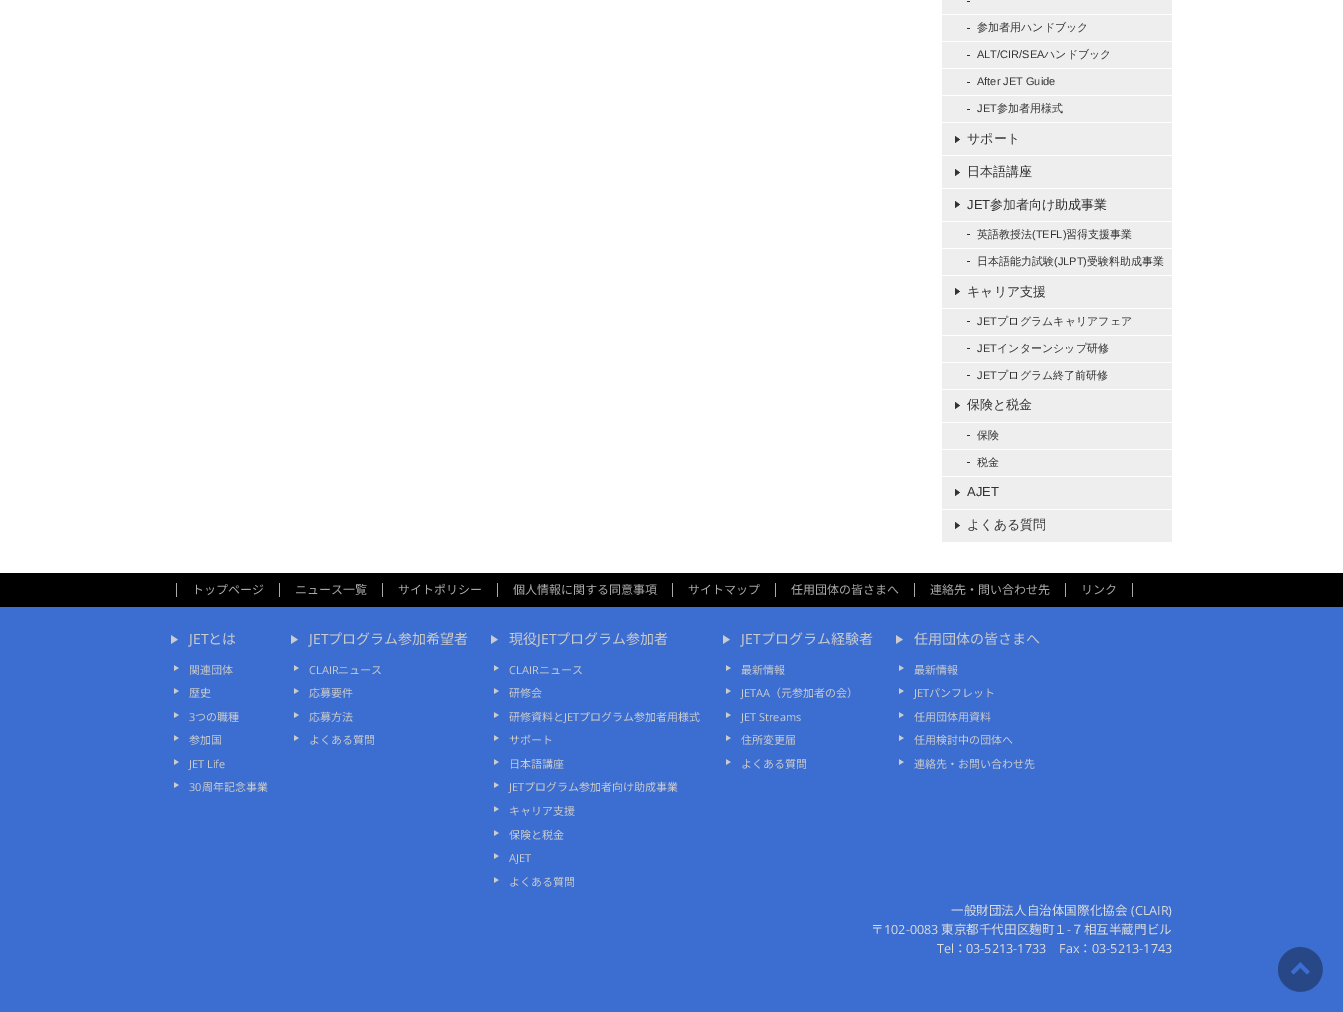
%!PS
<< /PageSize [1343 1012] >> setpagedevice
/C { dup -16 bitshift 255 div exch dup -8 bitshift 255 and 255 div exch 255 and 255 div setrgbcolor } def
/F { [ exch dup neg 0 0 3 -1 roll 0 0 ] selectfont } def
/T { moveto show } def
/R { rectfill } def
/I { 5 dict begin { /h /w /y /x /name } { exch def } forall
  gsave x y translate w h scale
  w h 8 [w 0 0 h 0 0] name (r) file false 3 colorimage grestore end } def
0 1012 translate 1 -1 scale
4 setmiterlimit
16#FFFFFF C
0 0 1343 1012 R
16#EEEEEE C
942 0 230 14 R
16#333333 C
967 1 3 1 R
16#EEEEEE C
942 15 230 26 R
16#333333 C
967 28 3 1 R
/WenQuanYiZenHei-Medium 11 F
(参加者用ハンドブック) 977 31 T
16#EEEEEE C
942 42 230 26 R
16#333333 C
967 55 3 1 R
/LiberationSans-Regular 11 F
(ALT/CIR/SEA) 977 58 T
/WenQuanYiZenHei-Medium 11 F
(ハンドブック) 1044 58 T
16#EEEEEE C
942 69 230 26 R
16#333333 C
967 82 3 1 R
/LiberationSans-Regular 11 F
(After JET Guide) 977 85 T
16#EEEEEE C
942 96 230 26 R
16#333333 C
967 109 3 1 R
(JET) 977 112 T
/WenQuanYiZenHei-Medium 11 F
(参加者用様式) 997 112 T
16#EEEEEE C
942 123 230 32 R
(1.rgb) 955 136 5 7 I
/WenQuanYiZenHei-Medium 13 F
16#333333 C
(サポート) 967 143 T
16#EEEEEE C
942 156 230 32 R
(1.rgb) 955 169 5 7 I
16#333333 C
(日本語講座) 967 176 T
16#EEEEEE C
942 189 230 32 R
(1.rgb) 955 201 5 7 I
/LiberationSans-Regular 13 F
16#333333 C
(JET) 967 209 T
/WenQuanYiZenHei-Medium 13 F
(参加者向け助成事業) 990 209 T
16#EEEEEE C
942 222 230 26 R
16#333333 C
967 234 3 1 R
/WenQuanYiZenHei-Medium 11 F
(英語教授法) 977 238 T
/LiberationSans-Regular 11 F
(\(TEFL\)) 1032 238 T
/WenQuanYiZenHei-Medium 11 F
(習得支援事業) 1066 238 T
16#EEEEEE C
942 249 230 26 R
16#333333 C
967 261 3 1 R
(日本語能力試験) 977 265 T
/LiberationSans-Regular 11 F
(\(JLPT\)) 1054 265 T
/WenQuanYiZenHei-Medium 11 F
(受験料助成事業) 1087 265 T
16#EEEEEE C
942 276 230 32 R
(1.rgb) 955 288 5 7 I
/WenQuanYiZenHei-Medium 13 F
16#333333 C
(キャリア支援) 967 296 T
16#EEEEEE C
942 309 230 26 R
16#333333 C
967 321 3 1 R
/LiberationSans-Regular 11 F
(JET) 977 325 T
/WenQuanYiZenHei-Medium 11 F
(プログラムキャリアフェア) 997 325 T
16#EEEEEE C
942 336 230 26 R
16#333333 C
967 348 3 1 R
/LiberationSans-Regular 11 F
(JET) 977 352 T
/WenQuanYiZenHei-Medium 11 F
(インターンシップ研修) 997 352 T
16#EEEEEE C
942 363 230 26 R
16#333333 C
967 375 3 1 R
/LiberationSans-Regular 11 F
(JET) 977 379 T
/WenQuanYiZenHei-Medium 11 F
(プログラム終了前研修) 997 379 T
16#EEEEEE C
942 390 230 32 R
(1.rgb) 955 402 5 7 I
/WenQuanYiZenHei-Medium 13 F
16#333333 C
(保険と税金) 967 409 T
16#EEEEEE C
942 423 230 26 R
16#333333 C
967 435 3 1 R
/WenQuanYiZenHei-Medium 11 F
(保険) 977 439 T
16#EEEEEE C
942 450 230 26 R
16#333333 C
967 462 3 1 R
(税金) 977 466 T
16#EEEEEE C
942 477 230 32 R
(1.rgb) 955 489 5 7 I
/LiberationSans-Regular 13 F
16#333333 C
(AJET) 967 496 T
16#EEEEEE C
942 510 230 32 R
(1.rgb) 955 522 5 7 I
/WenQuanYiZenHei-Medium 13 F
16#333333 C
(よくある質問) 967 529 T
16#000000 C
0 573 1343 34 R
16#AAAAAA C
176 583 1 14 R
/NotoSansJP-Regular 12 F
(トップページ) 192 594 T
279 583 1 14 R
(ニュース一覧) 295 594 T
382 583 1 14 R
(サイトポリシー) 398 594 T
497 583 1 14 R
(個人情報に関する同意事項) 513 594 T
672 583 1 14 R
(サイトマップ) 688 594 T
775 583 1 14 R
(任用団体の皆さまへ) 791 594 T
914 583 1 14 R
(連絡先・問い合わせ先) 930 594 T
1065 583 1 14 R
(リンク) 1081 594 T
1132 583 1 14 R
16#3C6DD0 C
0 607 1343 405 R
(2.rgb) 171 635 7 9 I
/OpenSans-Regular 14 F
16#CCCCCC C
(JET) 189 644 T
/NotoSansJP-Regular 14 F
(とは) 208 644 T
(3.rgb) 174 665 5 6 I
/NotoSansJP-Regular 11 F
(関連団体) 189 674 T
(3.rgb) 174 688 5 6 I
(歴史) 189 697 T
(3.rgb) 174 712 5 6 I
/OpenSans-Regular 11 F
(3) 189 721 T
/NotoSansJP-Regular 11 F
(つの職種) 195 721 T
(3.rgb) 174 735 5 6 I
(参加国) 189 744 T
(3.rgb) 174 759 5 6 I
/OpenSans-Regular 11 F
(JET Life) 189 768 T
(3.rgb) 174 782 5 6 I
(30) 189 791 T
/NotoSansJP-Regular 11 F
(周年記念事業) 202 791 T
(2.rgb) 291 635 7 9 I
/OpenSans-Regular 14 F
(JET) 309 644 T
/NotoSansJP-Regular 14 F
(プログラム参加希望者) 328 644 T
(3.rgb) 294 665 5 6 I
/OpenSans-Regular 11 F
(CLAIR) 309 674 T
/NotoSansJP-Regular 11 F
(ニュース) 338 674 T
(3.rgb) 294 688 5 6 I
(応募要件) 309 697 T
(3.rgb) 294 712 5 6 I
(応募方法) 309 721 T
(3.rgb) 294 735 5 6 I
(よくある質問) 309 744 T
(2.rgb) 491 635 7 9 I
/NotoSansJP-Regular 14 F
(現役) 509 644 T
/OpenSans-Regular 14 F
(JET) 537 644 T
/NotoSansJP-Regular 14 F
(プログラム参加者) 556 644 T
(3.rgb) 494 665 5 6 I
/OpenSans-Regular 11 F
(CLAIR) 509 674 T
/NotoSansJP-Regular 11 F
(ニュース) 539 674 T
(3.rgb) 494 688 5 6 I
(研修会) 509 697 T
(3.rgb) 494 712 5 6 I
(研修資料と) 509 721 T
/OpenSans-Regular 11 F
(JET) 564 721 T
/NotoSansJP-Regular 11 F
(プログラム参加者用様式) 579 721 T
(3.rgb) 494 735 5 6 I
(サポート) 509 744 T
(3.rgb) 494 759 5 6 I
(日本語講座) 509 768 T
(3.rgb) 494 782 5 6 I
/OpenSans-Regular 11 F
(JET) 509 791 T
/NotoSansJP-Regular 11 F
(プログラム参加者向け助成事業) 524 791 T
(3.rgb) 494 806 5 6 I
(キャリア支援) 509 815 T
(3.rgb) 494 830 5 6 I
(保険と税金) 509 839 T
(3.rgb) 494 853 5 6 I
/OpenSans-Regular 11 F
(AJET) 509 862 T
(3.rgb) 494 877 5 6 I
/NotoSansJP-Regular 11 F
(よくある質問) 509 886 T
(2.rgb) 723 635 7 9 I
/OpenSans-Regular 14 F
(JET) 741 644 T
/NotoSansJP-Regular 14 F
(プログラム経験者) 761 644 T
(3.rgb) 726 665 5 6 I
/NotoSansJP-Regular 11 F
(最新情報) 741 674 T
(3.rgb) 726 688 5 6 I
/OpenSans-Regular 11 F
(JETAA) 741 697 T
/NotoSansJP-Regular 11 F
(（元参加者の会）) 770 697 T
(3.rgb) 726 712 5 6 I
/OpenSans-Regular 11 F
(JET Streams) 741 721 T
(3.rgb) 726 735 5 6 I
/NotoSansJP-Regular 11 F
(住所変更届) 741 744 T
(3.rgb) 726 759 5 6 I
(よくある質問) 741 768 T
(2.rgb) 896 635 7 9 I
/NotoSansJP-Regular 14 F
(任用団体の皆さまへ) 914 644 T
(3.rgb) 899 665 5 6 I
/NotoSansJP-Regular 11 F
(最新情報) 914 674 T
(3.rgb) 899 688 5 6 I
/OpenSans-Regular 11 F
(JET) 914 697 T
/NotoSansJP-Regular 11 F
(パンフレット) 929 697 T
(3.rgb) 899 712 5 6 I
(任用団体用資料) 914 721 T
(3.rgb) 899 735 5 6 I
(任用検討中の団体へ) 914 744 T
(3.rgb) 899 759 5 6 I
(連絡先・お問い合わせ先) 914 768 T
/NotoSansJP-Regular 12.6 F
16#DDDDDD C
(一般財団法人自治体国際化協会) 951 915 T
/OpenSans-Regular 12.6 F
(\(CLAIR\)) 1131 915 T
/NotoSansJP-Regular 12.6 F
(〒) 871 934 T
/OpenSans-Regular 12.6 F
(102-0083) 884 934 T
/NotoSansJP-Regular 12.6 F
(東京都千代田区麹町１) 941 934 T
/OpenSans-Regular 12.6 F
(-) 1067 934 T
/NotoSansJP-Regular 12.6 F
(７相互半蔵門ビル) 1071 934 T
/OpenSans-Regular 12.6 F
(Tel) 937 953 T
/NotoSansJP-Regular 12.6 F
(：) 954 953 T
/OpenSans-Regular 12.6 F
(03-5213-1733) 966 953 T
(Fax) 1059 953 T
/NotoSansJP-Regular 12.6 F
(：) 1079 953 T
/OpenSans-Regular 12.6 F
(03-5213-1743) 1092 953 T
(4.rgb) 1278 947 45 45 I
showpage
